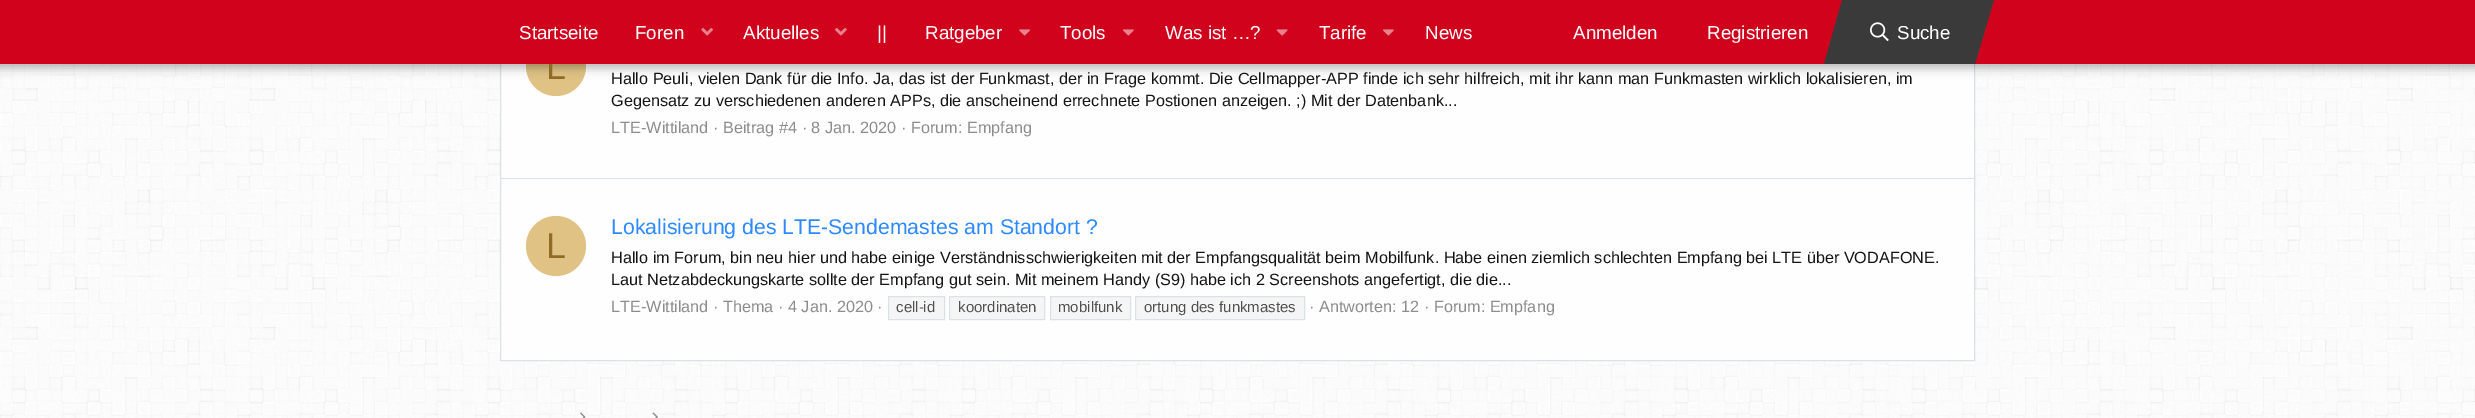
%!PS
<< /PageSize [2475 418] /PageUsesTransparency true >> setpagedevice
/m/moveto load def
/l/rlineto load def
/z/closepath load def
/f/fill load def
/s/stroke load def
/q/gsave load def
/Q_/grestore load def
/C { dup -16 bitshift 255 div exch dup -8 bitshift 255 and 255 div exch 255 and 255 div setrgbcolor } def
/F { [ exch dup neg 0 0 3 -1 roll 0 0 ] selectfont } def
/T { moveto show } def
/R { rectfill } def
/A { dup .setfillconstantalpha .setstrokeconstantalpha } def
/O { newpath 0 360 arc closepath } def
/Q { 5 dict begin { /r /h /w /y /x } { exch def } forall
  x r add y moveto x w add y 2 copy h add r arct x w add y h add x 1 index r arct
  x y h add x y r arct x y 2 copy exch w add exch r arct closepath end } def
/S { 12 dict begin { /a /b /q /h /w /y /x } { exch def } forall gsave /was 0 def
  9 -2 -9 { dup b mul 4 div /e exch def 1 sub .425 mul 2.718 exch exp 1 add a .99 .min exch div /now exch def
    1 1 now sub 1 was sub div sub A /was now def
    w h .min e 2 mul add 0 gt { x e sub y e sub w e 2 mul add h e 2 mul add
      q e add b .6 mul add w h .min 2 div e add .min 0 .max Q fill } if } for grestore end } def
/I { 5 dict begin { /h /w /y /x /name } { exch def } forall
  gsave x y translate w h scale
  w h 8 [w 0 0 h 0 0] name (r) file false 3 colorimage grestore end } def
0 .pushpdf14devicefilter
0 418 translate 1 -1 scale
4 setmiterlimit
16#FFFFFF C
0 0 2475 418 R
(1.rgb) 0 64 2475 354 I
16#FEFEFE C
501 64 1473 296 R
16#DAE1E8 C
500.5 -.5 1474 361 rectstroke
16#E0C285 C
556 66 30 O f
16#000000 C
-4 -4 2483 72 0 5 .3 S
/LiberationSans-Regular 36 F
16#8F6B24 C
(L) 546 79 T
16#D1021C C
0 0 2475 64 R
/LiberationSans-Regular 18.75 F
16#FFFFFF C
(Startseite) 519 39 T
(Foren) 635 39 T
(2.rgb) 701 28 12 8 I
(Aktuelles) 743 39 T
(3.rgb) 835 28 12 8 I
(||) 877 39 T
(Ratgeber) 925 39 T
(4.rgb) 1019 29 11 7 I
(Tools) 1060 39 T
(5.rgb) 1123 29 11 7 I
(Was ist …?) 1165 39 T
(6.rgb) 1276 29 12 7 I
(Tarife) 1319 39 T
(5.rgb) 1383 29 11 7 I
(News) 1425 39 T
(Anmelden) 1573 39 T
(Registrieren) 1707 39 T
16#3A3A3A C
1845 64 m -21 0 l 18 -64 l 3 0 l z f
1845 0 127 64 R
(7.rgb) 1870 22 19 19 I
16#FFFFFF C
(Suche) 1897 39 T
16#3A3A3A C
1972 0 m 22 0 l -19 64 l -3 0 l z f
/LiberationSans-Regular 16.25 F
16#141414 C
(Hallo Peuli, vielen Dank für die Info. Ja, das ist der Funkmast, der in Frage kommt. Die Cellmapper-APP finde ich sehr hilfreich, mit ihr kann man Funkmasten wirklich lokalisieren, im) 611 84 T
(Gegensatz zu verschiedenen anderen APPs, die anscheinend errechnete Postionen anzeigen. ;\) Mit der Datenbank...) 611 106 T
16#8C8C8C C
(LTE-Wittiland · Beitrag #4 · 8 Jan. 2020 · Forum: Empfang) 611 133 T
16#DAE1E8 C
501 178 1473 1 R
16#E0C285 C
556 246 30 O f
/LiberationSans-Regular 36 F
16#8F6B24 C
(L) 546 258 T
/LiberationSans-Regular 21.25 F
16#2C89FF C
(Lokalisierung des LTE-Sendemastes am Standort ?) 611 234 T
/LiberationSans-Regular 16.25 F
16#141414 C
(Hallo im Forum, bin neu hier und habe einige Verständnisschwierigkeiten mit der Empfangsqualität beim Mobilfunk. Habe einen ziemlich schlechten Empfang bei LTE über VODAFONE.) 611 263 T
(Laut Netzabdeckungskarte sollte der Empfang gut sein. Mit meinem Handy \(S9\) habe ich 2 Screenshots angefertigt, die die...) 611 285 T
16#8C8C8C C
(LTE-Wittiland · Thema · 4 Jan. 2020 ·) 611 312 T
16#F5F5F5 C
888.5 296.5 m 56 0 l 0 23 l -56 0 l z q f Q_
16#DAE1E8 C
s
/LiberationSans-Regular 15 F
16#505050 C
(cell-id) 896 312 T
16#F5F5F5 C
949.5 296.5 m 95 0 l 0 23 l -95 0 l z q f Q_
16#DAE1E8 C
s
16#505050 C
(koordinaten) 958 312 T
16#F5F5F5 C
1050.5 296.5 m 80 0 l 0 23 l -80 0 l z q f Q_
16#DAE1E8 C
s
16#505050 C
(mobilfunk) 1058 312 T
16#F5F5F5 C
1135.5 296.5 m 169 0 l 0 23 l -169 0 l z q f Q_
16#DAE1E8 C
s
16#505050 C
(ortung des funkmastes) 1144 312 T
/LiberationSans-Regular 16.25 F
16#8C8C8C C
(· Antworten: 12 · Forum: Empfang) 1309 312 T
(8.rgb) 580 412 6 6 I
(9.rgb) 652 412 6 6 I
.poppdf14devicefilter showpage
